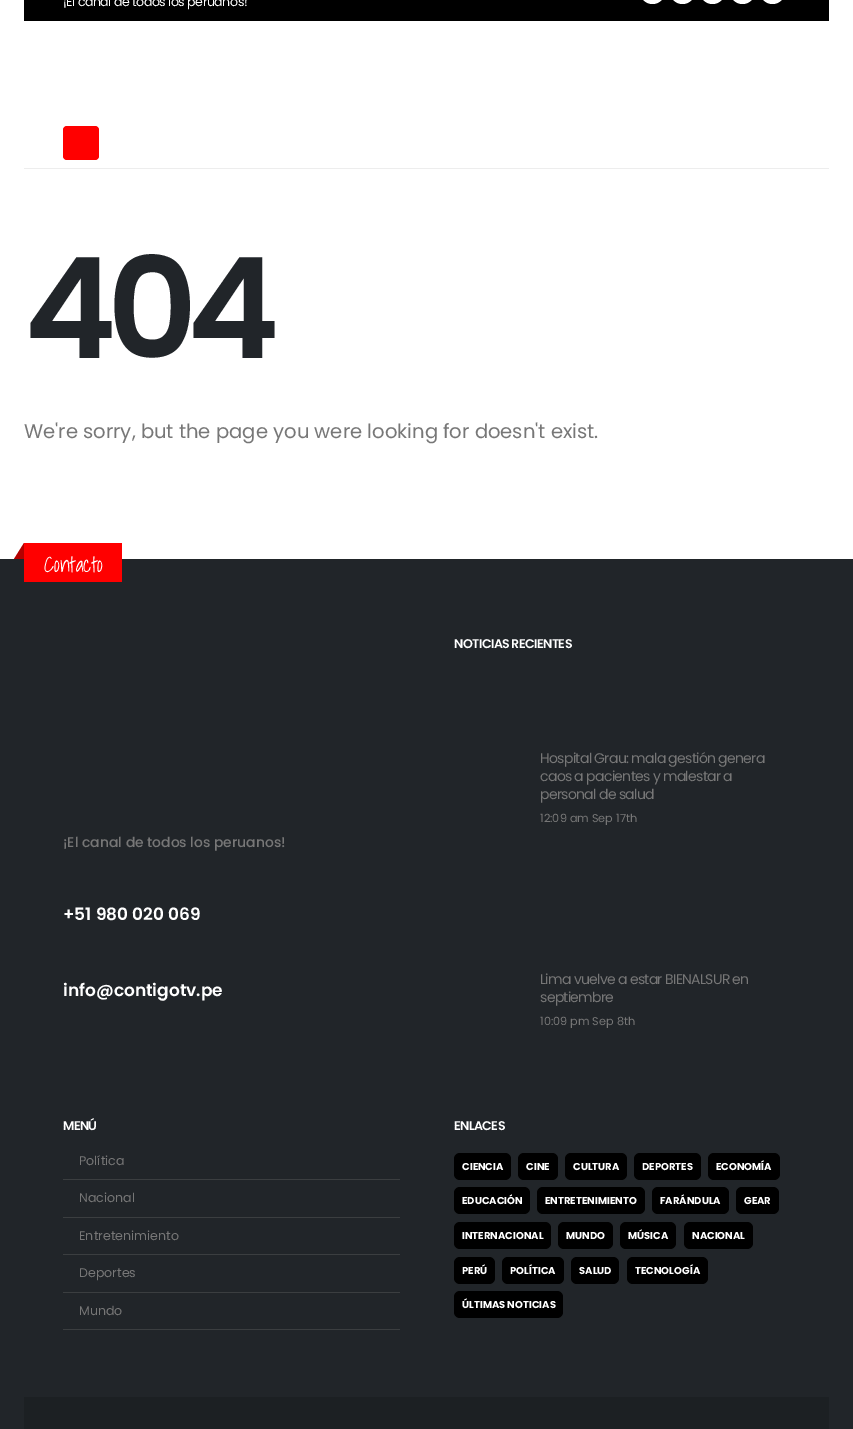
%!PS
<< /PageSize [853 1429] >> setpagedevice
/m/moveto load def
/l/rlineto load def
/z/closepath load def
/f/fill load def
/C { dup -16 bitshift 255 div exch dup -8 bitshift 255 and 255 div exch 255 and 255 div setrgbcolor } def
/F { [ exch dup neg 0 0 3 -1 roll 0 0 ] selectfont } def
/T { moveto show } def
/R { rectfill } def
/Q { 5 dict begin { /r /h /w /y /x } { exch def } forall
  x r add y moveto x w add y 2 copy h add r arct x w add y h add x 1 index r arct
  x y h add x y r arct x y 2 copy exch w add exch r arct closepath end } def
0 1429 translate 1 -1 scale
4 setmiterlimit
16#FFFFFF C
0 0 853 1429 R
16#000000 C
24 0 805 21 R
16#FFFFFF C
640 -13 25 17 12.5 Q f
670 -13 25 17 12.5 Q f
700 -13 25 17 12.5 Q f
730 -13 25 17 12.5 Q f
760 -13 25 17 12.5 Q f
/Poppins-Regular 12.6 F
63 6 m -.5 0 (¡El canal de todos los peruanos!) ashow
16#FF0000 C
63 126 36 34 4 Q f
16#EDEDED C
24 168 805 1 R
/Poppins-SemiBold 140 F
16#212529 C
24 358 m -10 0 (404) ashow
/Poppins-Regular 19.6 F
16#777777 C
(We're sorry, but the page you were looking for doesn't exist.) 24 438 T
16#212529 C
0 559 853 870 R
16#FF0000 C
24 543 98 39 R
16#B30000 C
24 543 m 0 16 l -10 0 l z f
/ShadowsIntoLight-Regular 21 F
16#FFFFFF C
(Contacto) 44 572 T
/Poppins-Medium 13.9 F
16#777777 C
(¡El canal de todos los peruanos!) 63 847 T
/Poppins-SemiBold 17 F
16#FFFFFF C
(+51 980 020 069) 63 920 T
(info@contigotv.pe) 63 996 T
/Poppins-SemiBold 12.6 F
454 648 m -.6 0 (NOTICIAS RECIENTES) ashow
/Poppins-Regular 14 F
16#777777 C
540 763 m -.7 0 (Hospital Grau: mala gestión genera) ashow
540 781 m -.7 0 (caos a pacientes y malestar a) ashow
540 799 m -.7 0 (personal de salud) ashow
/Poppins-Regular 11.25 F
(12:09 am Sep 17th) 540 822 T
/Poppins-Regular 14 F
540 984 m -.7 0 (Lima vuelve a estar BIENALSUR en) ashow
540 1002 m -.7 0 (septiembre) ashow
/Poppins-Regular 11.25 F
(10:09 pm Sep 8th) 540 1025 T
/Poppins-SemiBold 12.6 F
16#FFFFFF C
63 1130 m -.6 0 (MENÚ) ashow
16#3B3E40 C
63 1329 337 1 R
/Poppins-Regular 12.6 F
16#777777 C
(Política) 79 1165 T
16#3B3E40 C
63 1179 337 1 R
16#777777 C
(Nacional) 79 1202 T
16#3B3E40 C
63 1217 337 1 R
16#777777 C
(Entretenimiento) 79 1240 T
16#3B3E40 C
63 1254 337 1 R
16#777777 C
(Deportes) 79 1277 T
16#3B3E40 C
63 1292 337 1 R
16#777777 C
(Mundo) 79 1315 T
/Poppins-SemiBold 12.6 F
16#FFFFFF C
454 1130 m -.6 0 (ENLACES) ashow
16#000000 C
454 1153 57 27 6 Q f
/Poppins-Bold 10 F
16#FFFFFF C
(CIENCIA) 462 1170 T
16#000000 C
518 1153 40 27 6 Q f
16#FFFFFF C
(CINE) 526 1170 T
16#000000 C
565 1153 62 27 6 Q f
16#FFFFFF C
(CULTURA) 573 1170 T
16#000000 C
634 1153 67 27 6 Q f
16#FFFFFF C
(DEPORTES) 642 1170 T
16#000000 C
708 1153 72 27 6 Q f
16#FFFFFF C
(ECONOMÍA) 716 1170 T
16#000000 C
454 1187 76 27 6 Q f
16#FFFFFF C
(EDUCACIÓN) 462 1204 T
16#000000 C
537 1187 108 27 6 Q f
16#FFFFFF C
(ENTRETENIMIENTO) 545 1204 T
16#000000 C
652 1187 77 27 6 Q f
16#FFFFFF C
(FARÁNDULA) 660 1204 T
16#000000 C
736 1187 43 27 6 Q f
16#FFFFFF C
(GEAR) 744 1204 T
16#000000 C
454 1222 97 27 6 Q f
16#FFFFFF C
(INTERNACIONAL) 462 1239 T
16#000000 C
558 1222 55 27 6 Q f
16#FFFFFF C
(MUNDO) 566 1239 T
16#000000 C
620 1222 56 27 6 Q f
16#FFFFFF C
(MÚSICA) 628 1239 T
16#000000 C
684 1222 69 27 6 Q f
16#FFFFFF C
(NACIONAL) 692 1239 T
16#000000 C
454 1257 41 27 6 Q f
16#FFFFFF C
(PERÚ) 462 1274 T
16#000000 C
502 1257 62 27 6 Q f
16#FFFFFF C
(POLÍTICA) 510 1274 T
16#000000 C
571 1257 48 27 6 Q f
16#FFFFFF C
(SALUD) 579 1274 T
16#000000 C
627 1257 81 27 6 Q f
16#FFFFFF C
(TECNOLOGÍA) 635 1274 T
16#000000 C
454 1291 109 27 6 Q f
16#FFFFFF C
(ÚLTIMAS NOTICIAS) 462 1308 T
16#1C2023 C
24 1397 805 32 R
showpage
